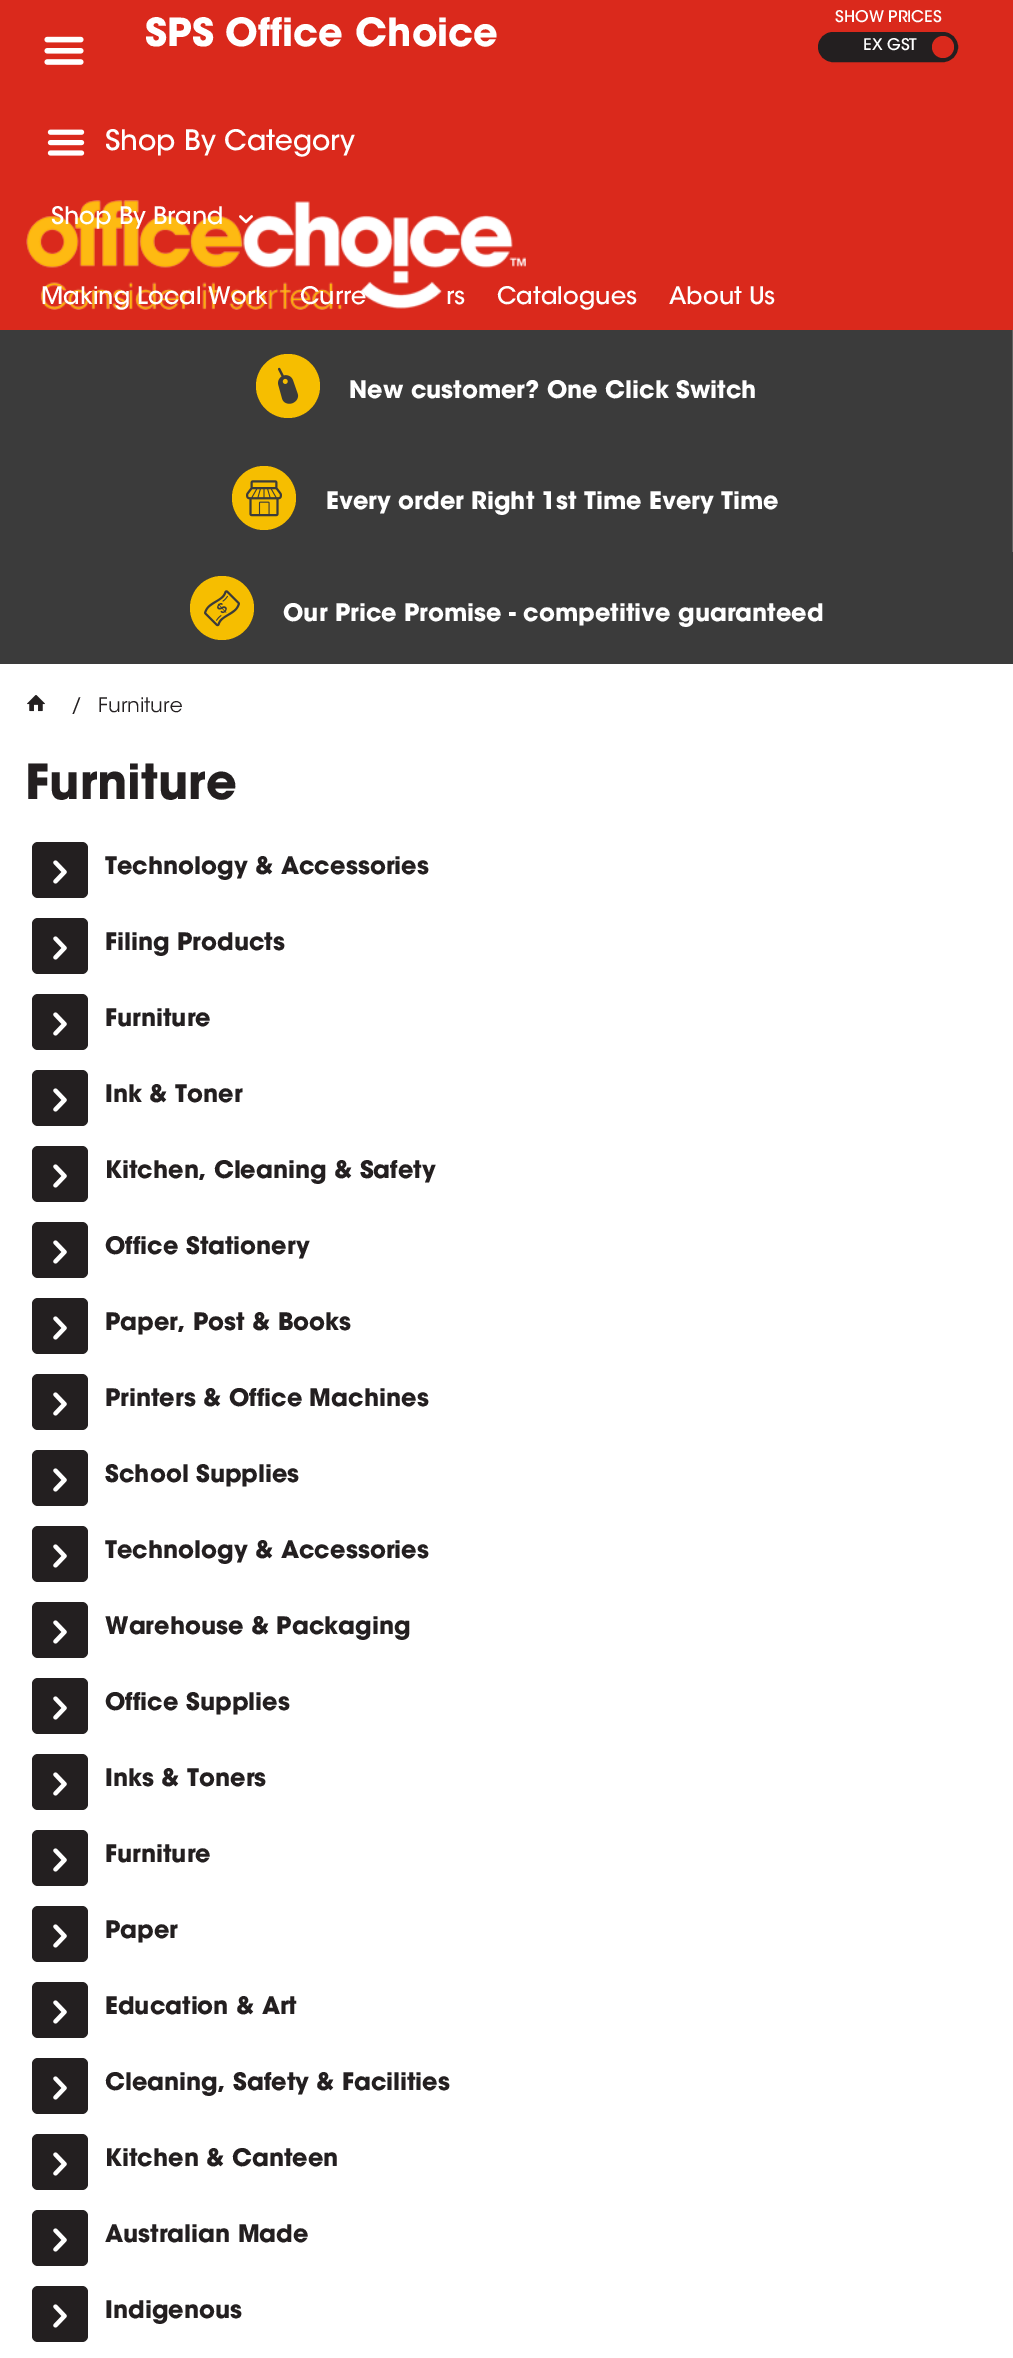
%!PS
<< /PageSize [1013 2358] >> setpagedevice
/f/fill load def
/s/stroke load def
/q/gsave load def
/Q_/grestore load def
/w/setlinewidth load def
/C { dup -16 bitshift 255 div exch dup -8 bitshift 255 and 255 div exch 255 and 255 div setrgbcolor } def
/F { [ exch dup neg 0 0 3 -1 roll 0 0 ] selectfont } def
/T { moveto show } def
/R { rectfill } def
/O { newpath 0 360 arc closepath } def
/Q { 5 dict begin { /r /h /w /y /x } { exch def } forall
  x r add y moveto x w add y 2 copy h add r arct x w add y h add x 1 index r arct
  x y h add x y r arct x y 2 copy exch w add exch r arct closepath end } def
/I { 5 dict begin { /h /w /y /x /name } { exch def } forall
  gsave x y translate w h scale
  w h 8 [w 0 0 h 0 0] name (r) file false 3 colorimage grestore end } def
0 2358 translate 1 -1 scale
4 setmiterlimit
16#FFFFFF C
0 0 1013 2358 R
16#DA291C C
0 0 1013 330 R
(1.rgb) 26 200 500 110 I
/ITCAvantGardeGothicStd-Bold 38.5 F
16#FFFFFF C
(SPS Office Choice) 145 46 T
/ITCAvantGardeGothicStd-Medium 16 F
(SHOW PRICES) 835 22 T
16#231F20 C
819 33 138 28 14 Q q f Q_
2 w
s
16#FFFFFF C
(EX GST) 863 50 T
16#DA291C C
943 47 11 O f
(2.rgb) 44 36 40 29 I
(3.rgb) 47 129 38 27 I
/ITCAvantGardeGothicStd-Medium 28 F
16#FFFFFF C
(Shop By Category) 105 150 T
/ITCAvantGardeGothicStd-Medium 24 F
(Shop By Brand) 51 224 T
(4.rgb) 239 215 14 9 I
(Making Local Work) 41 304 T
(Curre) 300 304 T
(rs) 446 304 T
(Catalogues) 497 304 T
(About Us) 669 304 T
16#3B3B3B C
0 330 1013 334 R
16#616161 C
1012 330 1 222 R
16#F6BE00 C
288 386 32 O f
(5.rgb) 278 367 21 37 I
/ITCAvantGardeGothicStd-Bold 24 F
16#FFFFFF C
(New customer? One Click Switch) 349 398 T
16#F6BE00 C
264 498 32 O f
(6.rgb) 246 480 36 37 I
16#FFFFFF C
(Every order Right 1st Time Every Time) 326 509 T
16#F6BE00 C
222 608 32 O f
(7.rgb) 204 590 36 37 I
16#FFFFFF C
(Our Price Promise - competitive guaranteed) 283 621 T
(8.rgb) 27 695 18 17 I
/ITCAvantGardeGothicStd-Light 20 F
16#231F20 C
(/) 71 712 T
(Furniture) 98 712 T
/ITCAvantGardeGothicStd-Bold 48 F
(Furniture) 25 799 T
32 842 56 56 6 Q f
(9.rgb) 53 860 14 24 I
/ITCAvantGardeGothicStd-Bold 24 F
(Technology & Accessories) 105 874 T
32 918 56 56 6 Q f
(9.rgb) 53 936 14 24 I
(Filing Products) 105 950 T
32 994 56 56 6 Q f
(9.rgb) 53 1012 14 24 I
(Furniture) 105 1026 T
32 1070 56 56 6 Q f
(9.rgb) 53 1088 14 24 I
(Ink & Toner) 105 1102 T
32 1146 56 56 6 Q f
(9.rgb) 53 1164 14 24 I
(Kitchen, Cleaning & Safety) 105 1178 T
32 1222 56 56 6 Q f
(9.rgb) 53 1240 14 24 I
(Office Stationery) 105 1254 T
32 1298 56 56 6 Q f
(9.rgb) 53 1316 14 24 I
(Paper, Post & Books) 105 1330 T
32 1374 56 56 6 Q f
(9.rgb) 53 1392 14 24 I
(Printers & Office Machines) 105 1406 T
32 1450 56 56 6 Q f
(9.rgb) 53 1468 14 24 I
(School Supplies) 105 1482 T
32 1526 56 56 6 Q f
(9.rgb) 53 1544 14 24 I
(Technology & Accessories) 105 1558 T
32 1602 56 56 6 Q f
(9.rgb) 53 1620 14 24 I
(Warehouse & Packaging) 105 1634 T
32 1678 56 56 6 Q f
(9.rgb) 53 1696 14 24 I
(Office Supplies) 105 1710 T
32 1754 56 56 6 Q f
(9.rgb) 53 1772 14 24 I
(Inks & Toners) 105 1786 T
32 1830 56 56 6 Q f
(9.rgb) 53 1848 14 24 I
(Furniture) 105 1862 T
32 1906 56 56 6 Q f
(9.rgb) 53 1924 14 24 I
(Paper) 105 1938 T
32 1982 56 56 6 Q f
(9.rgb) 53 2000 14 24 I
(Education & Art) 105 2014 T
32 2058 56 56 6 Q f
(9.rgb) 53 2076 14 24 I
(Cleaning, Safety & Facilities) 105 2090 T
32 2134 56 56 6 Q f
(9.rgb) 53 2152 14 24 I
(Kitchen & Canteen) 105 2166 T
32 2210 56 56 6 Q f
(9.rgb) 53 2228 14 24 I
(Australian Made) 105 2242 T
32 2286 56 56 6 Q f
(9.rgb) 53 2304 14 24 I
(Indigenous) 105 2318 T
showpage
